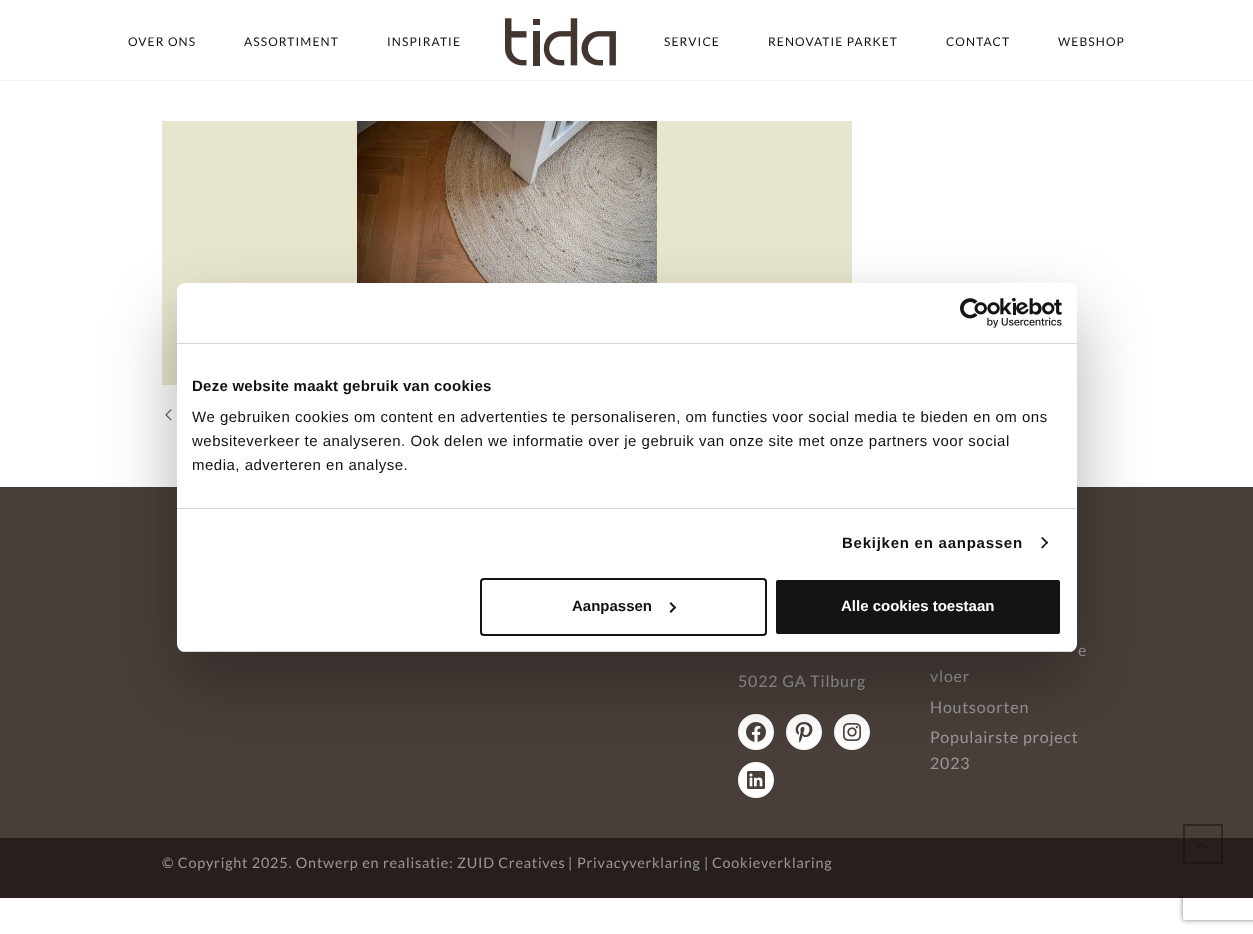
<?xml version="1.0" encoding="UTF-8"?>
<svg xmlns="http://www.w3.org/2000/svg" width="1253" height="934">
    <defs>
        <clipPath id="clip1"><path d="M 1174 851 H 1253 V 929 H 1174 Z M 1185 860 H 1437 C 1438 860 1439 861 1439 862 V 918 C 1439 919 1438 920 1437 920 H 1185 C 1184 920 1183 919 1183 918 V 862 C 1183 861 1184 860 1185 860 Z" clip-rule="evenodd"/></clipPath>
        <filter id="blur1" x="-50%" y="-200%" width="200%" height="500%"><feGaussianBlur stdDeviation="2.5"/></filter>
        <filter id="blur2" x="-50%" y="-200%" width="200%" height="500%"><feGaussianBlur stdDeviation="34"/></filter>
        <clipPath id="clip2"><rect x="177" y="283" width="900" height="369" rx="8"/></clipPath>
    </defs>
    <rect width="100%" height="100%" fill="#FFFFFF"/>
    <rect x="0" y="80" width="1253" height="1" fill="#EEEEEE"/>
    <text x="128" y="46" font-family="Lato" font-size="12" letter-spacing="1.1" fill="#111111">OVER ONS</text>
    <text x="244" y="46" font-family="Lato" font-size="12" letter-spacing="1.1" fill="#111111">ASSORTIMENT</text>
    <text x="387" y="46" font-family="Lato" font-size="12" letter-spacing="1.1" fill="#111111">INSPIRATIE</text>
    <image x="505" y="18" width="111" height="48" href="img_01.png"/>
    <text x="664" y="46" font-family="Lato" font-size="12" letter-spacing="1.1" fill="#111111">SERVICE</text>
    <text x="768" y="46" font-family="Lato" font-size="12" letter-spacing="1.1" fill="#111111">RENOVATIE PARKET</text>
    <text x="946" y="46" font-family="Lato" font-size="12" letter-spacing="1.1" fill="#111111">CONTACT</text>
    <text x="1058" y="46" font-family="Lato" font-size="12" letter-spacing="1.1" fill="#111111">WEBSHOP</text>
    <rect x="162" y="121" width="690" height="264" fill="#E8E5CE"/>
    <image x="357" y="121" width="300" height="162" href="img_02.png"/>
    <image x="165" y="409" width="7" height="12" href="img_03.png"/>
    <rect x="0" y="487" width="1253" height="351" fill="#493F3A"/>
    <text x="738" y="687" font-family="Lato" font-size="16" letter-spacing="0.8" fill="#999999">5022 GA Tilburg</text>
    <circle cx="756" cy="732" r="18" fill="#FFFFFF"/>
    <image x="746" y="722" width="20" height="20" href="img_04.png"/>
    <circle cx="804" cy="732" r="18" fill="#FFFFFF"/>
    <image x="795" y="722" width="18" height="21" href="img_05.png"/>
    <circle cx="852" cy="732" r="18" fill="#FFFFFF"/>
    <image x="843" y="723" width="18" height="18" href="img_06.png"/>
    <circle cx="756" cy="780" r="18" fill="#FFFFFF"/>
    <image x="747" y="771" width="18" height="18" href="img_07.png"/>
    <text x="1078" y="656" font-family="Lato" font-size="16" letter-spacing="0.8" fill="#999999">e</text>
    <text font-family="Lato" font-size="16" letter-spacing="0.8" fill="#999999">
        <tspan x="930" y="682">vloer</tspan>
        <tspan x="930" y="713">Houtsoorten</tspan>
        <tspan x="930" y="743">Populairste project</tspan>
        <tspan x="930" y="769">2023</tspan>
    </text>
    <g clip-path="url(#clip1)">
        <rect x="1183" y="860" width="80" height="60" rx="2" fill="#808080" filter="url(#blur1)"/>
    </g>
    <rect x="0" y="838" width="1253" height="60" fill="#281F1D"/>
    <text x="162" y="868" font-family="Lato" font-size="14.4" letter-spacing="0.8" fill="#999999">© Copyright 2025. Ontwerp en realisatie:</text>
    <text x="457" y="868" font-family="Lato" font-size="14.4" letter-spacing="0.75" fill="#999999">ZUID Creatives</text>
    <text x="568" y="868" font-family="Lato" font-size="14.4" letter-spacing="0.8" fill="#999999">|</text>
    <text x="577" y="868" font-family="Lato" font-size="14.4" letter-spacing="0.75" fill="#999999">Privacyverklaring</text>
    <text x="704" y="868" font-family="Lato" font-size="14.4" letter-spacing="0.8" fill="#999999">|</text>
    <text x="712" y="868" font-family="Lato" font-size="14.4" letter-spacing="0.75" fill="#999999">Cookieverklaring</text>
    <rect x="177" y="315" width="900" height="369" rx="8" fill="#000000" fill-opacity="0.3" filter="url(#blur2)"/>
    <rect x="177" y="283" width="900" height="369" rx="8" fill="#FFFFFF"/>
    <rect x="177" y="343" width="900" height="1" fill="#D6D6D6"/>
    <image x="960" y="298" width="102" height="30" href="img_08.png"/>
    <rect x="177" y="508" width="900" height="1" fill="#D6D6D6"/>
    <text x="192" y="391" font-family="Liberation Sans" font-size="15" font-weight="700" letter-spacing="0.25" fill="#111111">Deze website maakt gebruik van cookies</text>
    <text font-family="Liberation Sans" font-size="15" letter-spacing="0.5" fill="#111111">
        <tspan x="192" y="422">We gebruiken cookies om content en advertenties te personaliseren, om functies voor social media te bieden en om ons</tspan>
        <tspan x="192" y="446">websiteverkeer te analyseren. Ook delen we informatie over je gebruik van onze site met onze partners voor social</tspan>
        <tspan x="192" y="470">media, adverteren en analyse.</tspan>
    </text>
    <text x="842" y="548" font-family="Liberation Sans" font-size="15" font-weight="700" letter-spacing="0.75" fill="#111111">Bekijken en aanpassen</text>
    <path d="M 1042.5 537 L 1048 542.5 L 1047 544 L 1041 538 Z" fill="#141414"/>
    <path d="M 1047 541.5 L 1048 542.5 L 1042.5 548.5 L 1041 547.5 Z" fill="#141414"/>
    <g clip-path="url(#clip2)">
        <rect x="177" y="651" width="900" height="1" fill="#D6D6D6"/>
    </g>
    <rect x="481" y="579" width="285" height="56" rx="3" fill="none" stroke="#141414" stroke-width="2"/>
    <text x="572" y="611" font-family="Liberation Sans" font-size="15" font-weight="700" fill="#111111">Aanpassen</text>
    <path d="M 671 602 L 676 607.5 L 675 609 L 669.5 603.5 Z" fill="#141414"/>
    <path d="M 675 606 L 676 607.5 L 671 613 L 669.5 611.5 Z" fill="#141414"/>
    <rect x="775" y="579" width="286" height="56" rx="3" fill="#141414" stroke="#FFFFFF" stroke-width="2"/>
    <text x="841" y="611" font-family="Liberation Sans" font-size="15" font-weight="700" fill="#FFFFFF">Alle cookies toestaan</text>
    <rect x="1184" y="825" width="38" height="38" fill="none" stroke="#111111" stroke-opacity="0.5" stroke-width="2"/>
    <image x="1197" y="843" width="11" height="6" href="img_09.png"/>
</svg>
